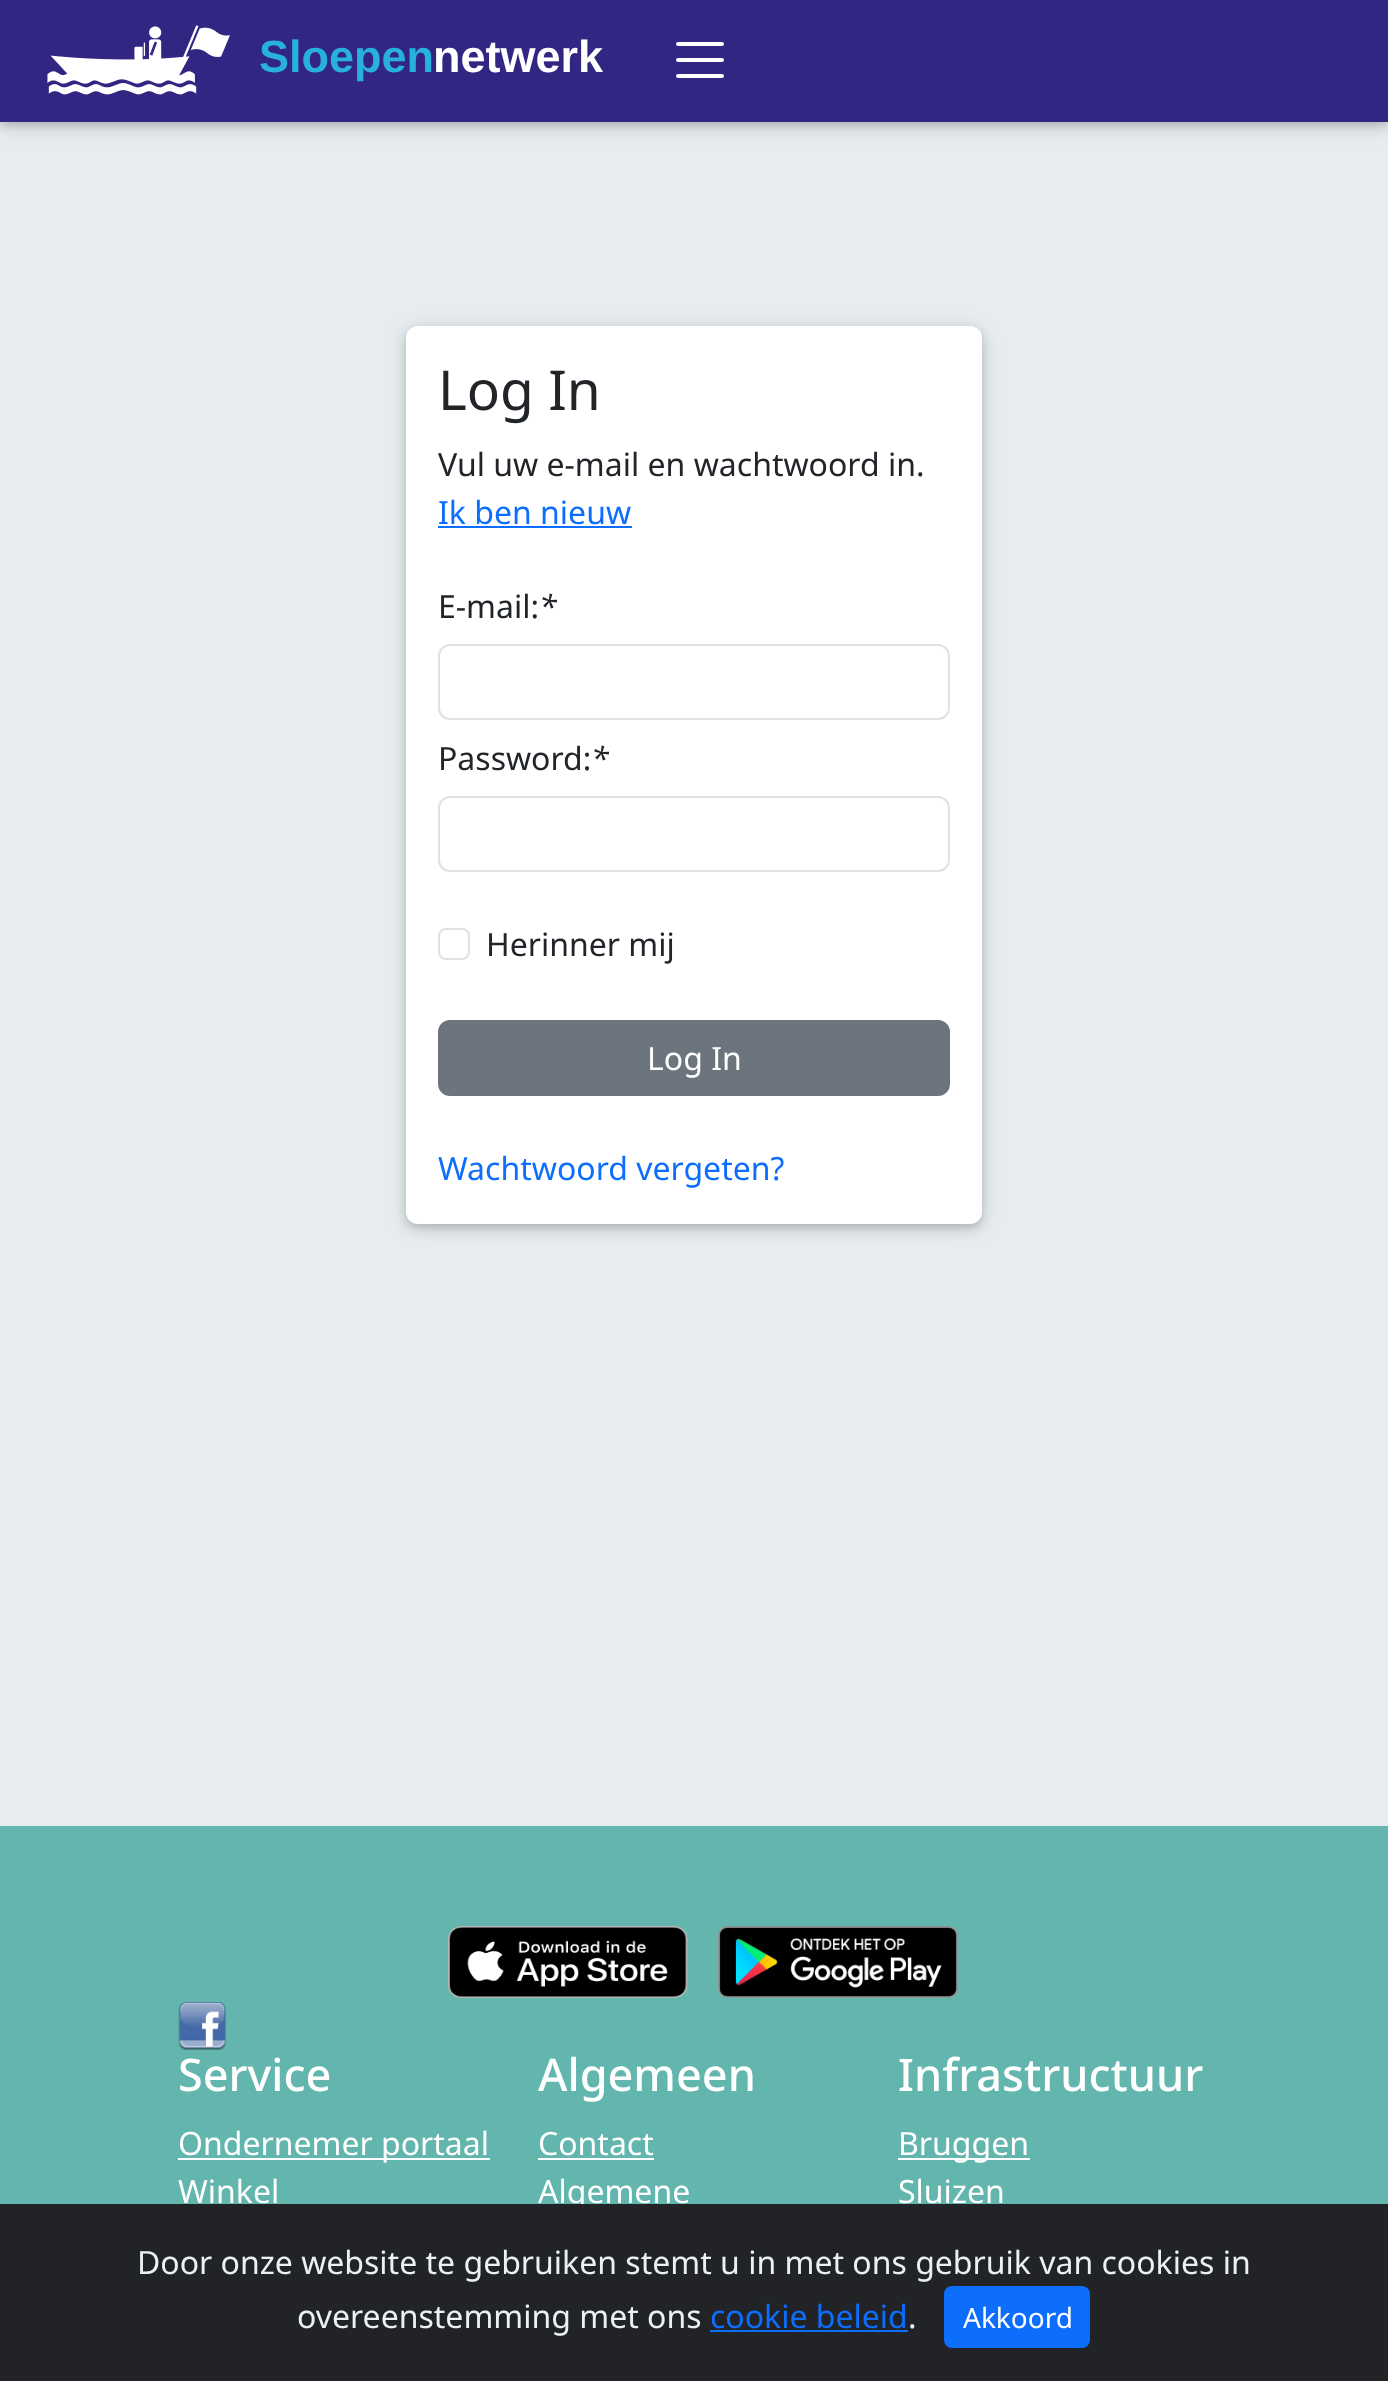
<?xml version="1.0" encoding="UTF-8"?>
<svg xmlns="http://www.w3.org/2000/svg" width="1388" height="2381">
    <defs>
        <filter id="blur1" x="-50%" y="-200%" width="200%" height="500%"><feGaussianBlur stdDeviation="10"/></filter>
        <filter id="blur2" x="-50%" y="-200%" width="200%" height="500%"><feGaussianBlur stdDeviation="5"/></filter>
    </defs>
    <rect width="100%" height="100%" fill="#E6ECEF"/>
    <rect x="0" y="4" width="1388" height="122" fill="#000000" fill-opacity="0.12" filter="url(#blur1)"/>
    <rect x="0" y="4" width="1388" height="122" fill="#000000" fill-opacity="0.16" filter="url(#blur2)"/>
    <rect x="0" y="0" width="1388" height="122" fill="#312783"/>
    <image x="47" y="25" width="183" height="70" href="img_01.png"/>
    <text x="259" y="72" font-family="Liberation Sans" font-size="45" font-weight="700" fill="#28B1DD">Sloepen</text>
    <text x="433" y="72" font-family="Liberation Sans" font-size="45" font-weight="700" fill="#FFFFFF">netwerk</text>
    <path d="M 678 44 H 722 M 678 60 H 722 M 678 76 H 722" fill="none" stroke="#FFFFFF" stroke-width="4" stroke-linecap="round"/>
    <rect x="406" y="330" width="576" height="898" rx="12" fill="#000000" fill-opacity="0.12" filter="url(#blur1)"/>
    <rect x="406" y="330" width="576" height="898" rx="12" fill="#000000" fill-opacity="0.16" filter="url(#blur2)"/>
    <rect x="406" y="326" width="576" height="898" rx="12" fill="#FFFFFF"/>
    <text x="438" y="410" font-family="Noto Sans" font-size="55" fill="#212529">Log In</text>
    <text x="438" y="476" font-family="Noto Sans" font-size="32" fill="#212529">Vul uw e-mail en wachtwoord in.</text>
    <text x="438" y="524" font-family="Noto Sans" font-size="32" fill="#0D6EFD">Ik ben nieuw</text>
    <rect x="438" y="526" width="194" height="2" fill="#0D6EFD"/>
    <text x="438" y="618" font-family="Noto Sans" font-size="32" fill="#212529">E-mail:</text>
    <text x="539" y="618" font-family="Noto Sans" font-size="32" font-style="italic" fill="#212529">*</text>
    <rect x="439" y="645" width="510" height="74" rx="11" fill="none" stroke="#DEE2E6" stroke-width="2"/>
    <text x="438" y="770" font-family="Noto Sans" font-size="32" fill="#212529">Password:</text>
    <text x="591" y="770" font-family="Noto Sans" font-size="32" font-style="italic" fill="#212529">*</text>
    <rect x="439" y="797" width="510" height="74" rx="11" fill="none" stroke="#DEE2E6" stroke-width="2"/>
    <rect x="439" y="929" width="30" height="30" rx="7" fill="none" stroke="#DEE2E6" stroke-width="2"/>
    <text x="486" y="956" font-family="Noto Sans" font-size="32" fill="#212529">Herinner mij</text>
    <rect x="439" y="1021" width="510" height="74" rx="11" fill="#6C757D" stroke="#6C757D" stroke-width="2"/>
    <text x="647" y="1070" font-family="Noto Sans" font-size="32" fill="#FFFFFF">Log In</text>
    <text x="438" y="1180" font-family="Noto Sans" font-size="32" fill="#0D6EFD">Wachtwoord vergeten?</text>
    <rect x="0" y="1826" width="1388" height="378" fill="#62B6AD"/>
    <image x="448" y="1926" width="240" height="72" href="img_02.png"/>
    <image x="718" y="1926" width="240" height="72" href="img_03.png"/>
    <image x="178" y="2002" width="48" height="48" href="img_04.png"/>
    <text x="178" y="2091" font-family="Noto Sans" font-size="45" font-weight="500" fill="#FFFFFF">Service</text>
    <rect x="178" y="2158" width="312" height="2" fill="#FFFFFF"/>
    <text font-family="Noto Sans" font-size="32" fill="#FFFFFF">
        <tspan x="178" y="2155">Ondernemer portaal</tspan>
        <tspan x="178" y="2203">Winkel</tspan>
    </text>
    <text x="538" y="2091" font-family="Noto Sans" font-size="45" font-weight="500" fill="#FFFFFF">Algemeen</text>
    <text x="538" y="2155" font-family="Noto Sans" font-size="32" fill="#FFFFFF">Contact</text>
    <rect x="538" y="2158" width="116" height="2" fill="#FFFFFF"/>
    <text x="538" y="2203" font-family="Noto Sans" font-size="32" fill="#FFFFFF">Algemene</text>
    <text x="898" y="2091" font-family="Noto Sans" font-size="45" font-weight="500" fill="#FFFFFF">Infrastructuur</text>
    <rect x="898" y="2158" width="132" height="2" fill="#FFFFFF"/>
    <text font-family="Noto Sans" font-size="32" fill="#FFFFFF">
        <tspan x="898" y="2155">Bruggen</tspan>
        <tspan x="898" y="2203">Sluizen</tspan>
    </text>
    <rect x="0" y="2204" width="1388" height="177" fill="#212327"/>
    <text x="137" y="2274" font-family="Noto Sans" font-size="32" fill="#ECF0F1">Door onze website te gebruiken stemt u in met ons gebruik van cookies in</text>
    <text x="297" y="2328" font-family="Noto Sans" font-size="32" fill="#ECF0F1">overeenstemming met ons</text>
    <text x="710" y="2328" font-family="Noto Sans" font-size="32" fill="#0D6EFD">cookie beleid</text>
    <rect x="710" y="2330" width="198" height="2" fill="#0D6EFD"/>
    <text x="908" y="2328" font-family="Noto Sans" font-size="32" fill="#ECF0F1">.</text>
    <rect x="945" y="2287" width="144" height="60" rx="7" fill="#0D6EFD" stroke="#0D6EFD" stroke-width="2"/>
    <text x="963" y="2328" font-family="Noto Sans" font-size="28" fill="#FFFFFF">Akkoord</text>
</svg>
